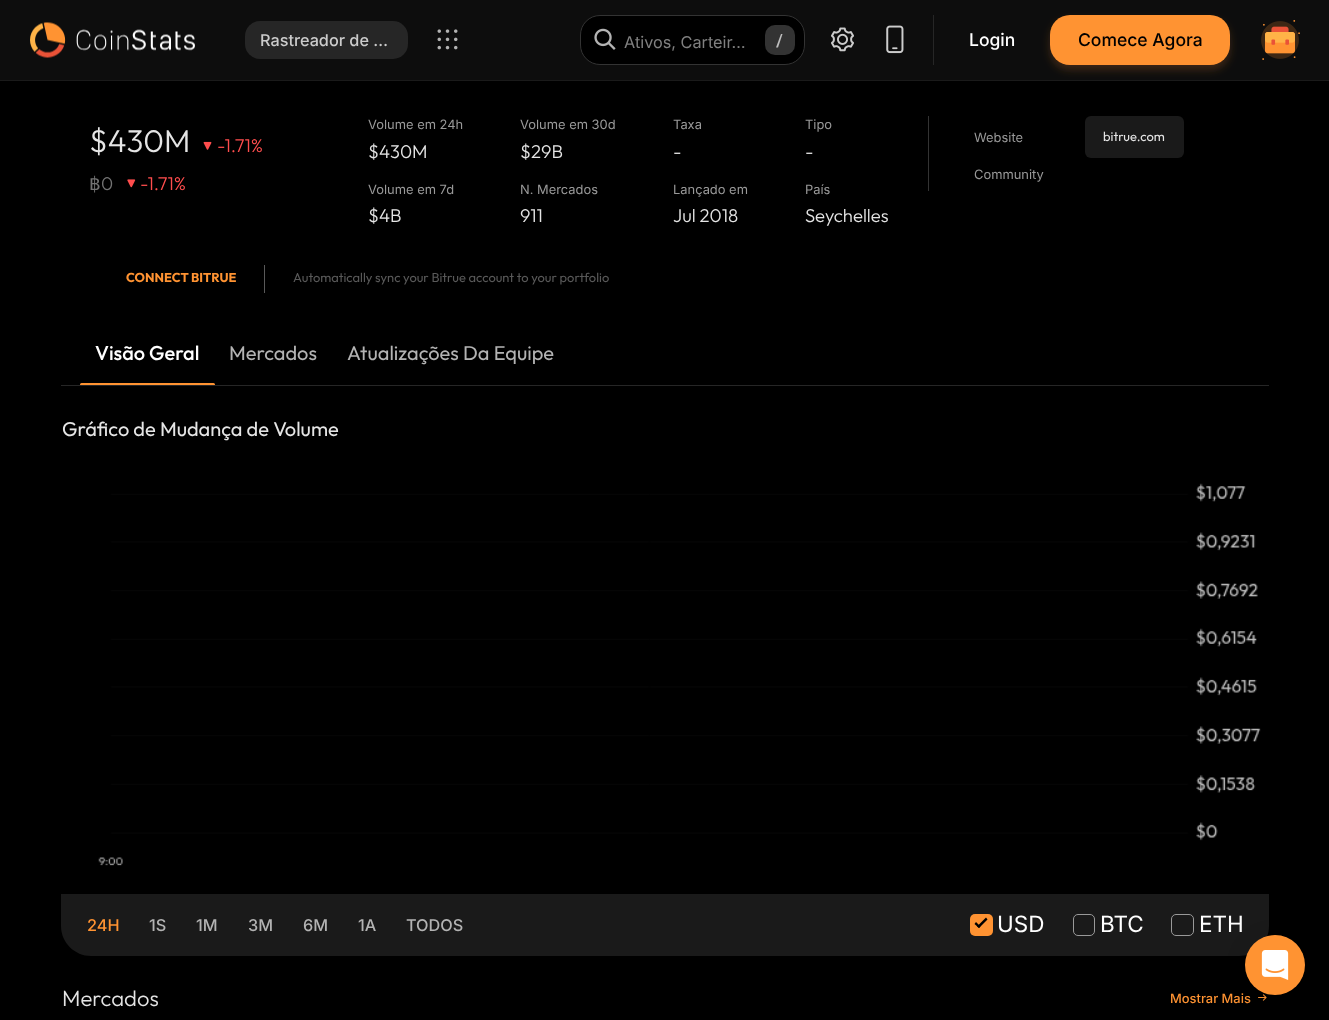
<?xml version="1.0" encoding="UTF-8"?>
<svg xmlns="http://www.w3.org/2000/svg" width="1329" height="1020">
    <defs>
        <filter id="blur1" x="-50%" y="-200%" width="200%" height="500%"><feGaussianBlur stdDeviation="4"/></filter>
        <clipPath id="clip1"><rect x="80" y="320" width="490" height="65"/></clipPath>
        <filter id="blur2" x="-50%" y="-200%" width="200%" height="500%"><feGaussianBlur stdDeviation="20"/></filter>
    </defs>
    <rect width="100%" height="100%" fill="#000000"/>
    <rect x="0" y="80" width="1329" height="1" fill="#1A1A1A"/>
    <rect x="0" y="0" width="1329" height="80" fill="#0D0D0D"/>
    <image x="30" y="22" width="165" height="36" href="img_01.png"/>
    <rect x="245" y="21" width="163" height="38" rx="15" fill="#262626"/>
    <text x="260" y="46" font-family="Inter" font-size="16.25" font-weight="500" fill="#CCCCCC">Rastreador de …</text>
    <image x="437" y="29" width="21" height="21" href="img_02.png"/>
    <rect x="580.5" y="15.5" width="224" height="49" rx="19.5" fill="#000000" stroke="#333333"/>
    <image x="594" y="28" width="22" height="22" href="img_03.png"/>
    <text x="624" y="48" font-family="Inter" font-size="16.25" fill="#808080">Ativos, Carteir…</text>
    <rect x="765" y="25" width="30" height="30" rx="10" fill="#333333"/>
    <path d="M 782.5 34 L 778 47.5 H 776 L 781 34 Z" fill="#BFBFBF"/>
    <image x="831" y="27" width="23" height="25" href="img_04.png"/>
    <image x="886" y="25" width="18" height="29" href="img_05.png"/>
    <rect x="933" y="15" width="1" height="50" fill="#262626"/>
    <text x="969" y="46" font-family="Inter" font-size="17.5" font-weight="500" fill="#FFFFFF">Login</text>
    <rect x="1050" y="20" width="180" height="50" rx="20" fill="#FF9332" fill-opacity="0.2" filter="url(#blur1)"/>
    <rect x="1050" y="15" width="180" height="50" rx="20" fill="#FF9332"/>
    <text x="1078" y="46" font-family="Inter" font-size="17.5" font-weight="500" fill="#000000">Comece Agora</text>
    <image x="1261" y="20" width="39" height="40" href="img_06.png"/>
    <text x="89" y="152" font-family="Outfit" font-size="31.5" font-weight="300" fill="#E5E5E5">$430M</text>
    <image x="203" y="141" width="9" height="9" href="img_07.png"/>
    <text x="217" y="152" font-family="Outfit" font-size="18.5" font-weight="300" fill="#FF4D4D">-1.71%</text>
    <text x="89" y="190" font-family="DejaVu Sans" font-size="18.5" fill="#737373">฿</text>
    <text x="101" y="190" font-family="Outfit" font-size="18.5" font-weight="300" fill="#737373">0</text>
    <image x="127" y="179" width="9" height="9" href="img_08.png"/>
    <text x="140" y="190" font-family="Outfit" font-size="18.5" font-weight="300" fill="#FF4D4D">-1.71%</text>
    <text x="368" y="129" font-family="Inter" font-size="12.9" fill="#999999">Volume em 24h</text>
    <text x="368" y="158" font-family="Outfit" font-size="18.5" font-weight="300" fill="#E5E5E5">$430M</text>
    <text x="520" y="129" font-family="Inter" font-size="12.9" fill="#999999">Volume em 30d</text>
    <text x="520" y="158" font-family="Outfit" font-size="18.5" font-weight="300" fill="#E5E5E5">$29B</text>
    <text x="673" y="129" font-family="Inter" font-size="12.9" fill="#999999">Taxa</text>
    <text x="673" y="158" font-family="Outfit" font-size="18.5" font-weight="300" fill="#E5E5E5">-</text>
    <text x="805" y="129" font-family="Inter" font-size="12.9" fill="#999999">Tipo</text>
    <text x="805" y="158" font-family="Outfit" font-size="18.5" font-weight="300" fill="#E5E5E5">-</text>
    <text x="368" y="194" font-family="Inter" font-size="12.9" fill="#999999">Volume em 7d</text>
    <text x="368" y="222" font-family="Outfit" font-size="18.5" font-weight="300" fill="#E5E5E5">$4B</text>
    <text x="520" y="194" font-family="Inter" font-size="12.9" fill="#999999">N. Mercados</text>
    <text x="520" y="222" font-family="Outfit" font-size="18.5" font-weight="300" fill="#E5E5E5">911</text>
    <text x="673" y="194" font-family="Inter" font-size="12.9" fill="#999999">Lançado em</text>
    <text x="673" y="222" font-family="Outfit" font-size="18.5" font-weight="300" fill="#E5E5E5">Jul 2018</text>
    <text x="805" y="194" font-family="Inter" font-size="12.9" fill="#999999">País</text>
    <text x="805" y="222" font-family="Outfit" font-size="18.5" font-weight="300" fill="#E5E5E5">Seychelles</text>
    <rect x="928" y="116" width="1" height="75" fill="#333333"/>
    <text x="974" y="142" font-family="Inter" font-size="12.9" fill="#999999">Website</text>
    <rect x="1085" y="116" width="99" height="42" rx="6" fill="#1A1A1A"/>
    <text x="1103" y="141" font-family="Outfit" font-size="12.9" fill="#E5E5E5">bitrue.com</text>
    <text x="974" y="179" font-family="Inter" font-size="12.9" fill="#999999">Community</text>
    <text x="126" y="282" font-family="Outfit" font-size="12.9" font-weight="700" fill="#FF9332">CONNECT BITRUE</text>
    <rect x="264" y="265" width="1" height="28" fill="#595959"/>
    <text x="293" y="282" font-family="Outfit" font-size="12.9" fill="#595959">Automatically sync your Bitrue account to your portfolio</text>
    <text x="95" y="360" font-family="Outfit" font-size="20" font-weight="500" fill="#FFFFFF">Visão Geral</text>
    <text x="229" y="360" font-family="Outfit" font-size="20" fill="#B3B3B3">Mercados</text>
    <text x="347" y="360" font-family="Outfit" font-size="20" fill="#B3B3B3">Atualizações Da Equipe</text>
    <rect x="61" y="385" width="1208" height="1" fill="#262626"/>
    <g clip-path="url(#clip1)">
        <rect x="80" y="383" width="135" height="3" rx="1.5" fill="#FF9332"/>
    </g>
    <text x="62" y="436" font-family="Outfit" font-size="20" fill="#E5E5E5">Gráfico de Mudança de Volume</text>
    <image x="98" y="483" width="1163" height="383" href="img_09.png"/>
    <path d="M 61 894 H 1269 V 926 C 1269 942.5 1255.5 956 1239 956 H 91 C 74.5 956 61 942.5 61 926 Z" fill="#1A1A1A"/>
    <text x="87" y="931" font-family="Inter" font-size="16.25" font-weight="500" fill="#FF9332">24H</text>
    <text x="149" y="931" font-family="Inter" font-size="16.25" font-weight="500" fill="#B3B3B3">1S</text>
    <text x="196" y="931" font-family="Inter" font-size="16.25" font-weight="500" fill="#B3B3B3">1M</text>
    <text x="248" y="931" font-family="Inter" font-size="16.25" font-weight="500" fill="#B3B3B3">3M</text>
    <text x="303" y="931" font-family="Inter" font-size="16.25" font-weight="500" fill="#B3B3B3">6M</text>
    <text x="358" y="931" font-family="Inter" font-size="16.25" font-weight="500" fill="#B3B3B3">1A</text>
    <text x="406" y="931" font-family="Inter" font-size="16.25" font-weight="500" fill="#B3B3B3">TODOS</text>
    <rect x="970" y="914" width="23" height="22" rx="5" fill="#FF9332"/>
    <text x="997" y="932" font-family="Inter" font-size="22.5" fill="#FFFFFF">USD</text>
    <path d="M 977 926.5 L 986 917.5 L 987.5 919.5 L 979 928 Z" fill="#000000"/>
    <path d="M 974.5 924 L 976 922 L 980.5 926.5 L 979 928 Z" fill="#000000"/>
    <rect x="1073.5" y="914.5" width="21" height="21" rx="4.5" fill="none" stroke="#999999"/>
    <text x="1100" y="932" font-family="Inter" font-size="22.5" fill="#FFFFFF">BTC</text>
    <rect x="1171.5" y="914.5" width="22" height="21" rx="4.5" fill="none" stroke="#999999"/>
    <text x="1199" y="932" font-family="Inter" font-size="22.5" fill="#FFFFFF">ETH</text>
    <text x="62" y="1006" font-family="Outfit" font-size="22" font-weight="300" fill="#E5E5E5">Mercados</text>
    <text x="1170" y="1003" font-family="Inter" font-size="12.9" font-weight="500" fill="#FF9332">Mostrar Mais</text>
    <image x="1258" y="994" width="9" height="7" href="img_10.png"/>
    <rect x="1245" y="938" width="60" height="60" rx="30" fill="#000000" fill-opacity="0.16" filter="url(#blur2)"/>
    <circle cx="1275" cy="965" r="30" fill="#FF9332"/>
    <image x="1261" y="950" width="28" height="30" href="img_11.png"/>
</svg>
